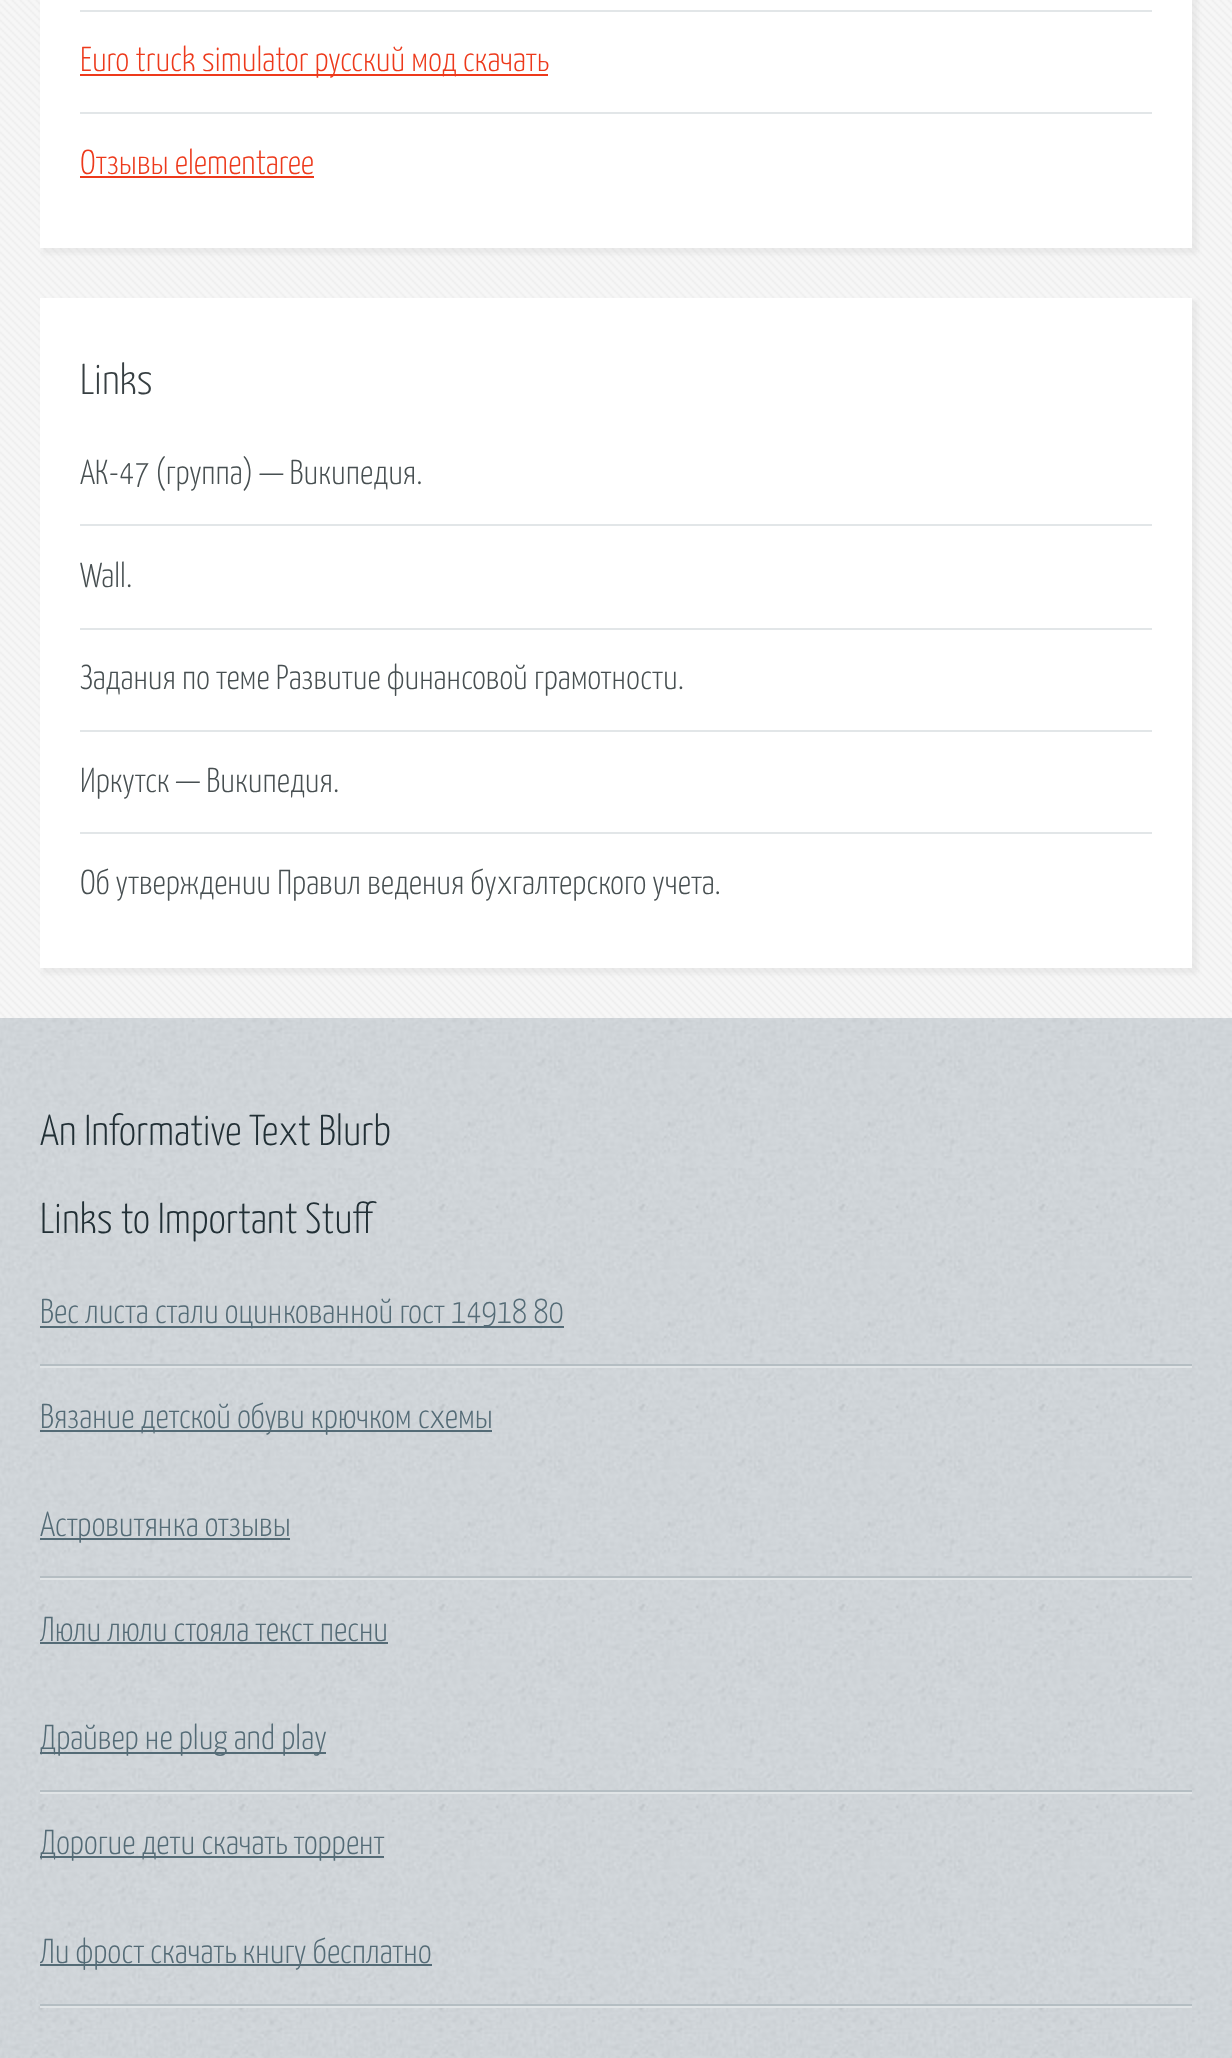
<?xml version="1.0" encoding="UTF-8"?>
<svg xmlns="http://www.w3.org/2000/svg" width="1232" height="2058">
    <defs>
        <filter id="blur1" x="-50%" y="-200%" width="200%" height="500%"><feGaussianBlur stdDeviation="2"/></filter>
    </defs>
    <rect width="100%" height="100%" fill="#FFFFFF"/>
    <image x="0" y="1018" width="1232" height="1040" href="img_01.png"/>
    <rect x="0" y="0" width="1232" height="1018" fill="#F7F7F7"/>
    <image x="0" y="0" width="1232" height="1018" href="img_02.png"/>
    <rect x="42" y="-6" width="1156" height="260" fill="#808080" fill-opacity="0.1" filter="url(#blur1)"/>
    <rect x="40" y="0" width="1152" height="248" fill="#FFFFFF"/>
    <rect x="80" y="10" width="1072" height="2" fill="#E2E6E8"/>
    <rect x="80" y="112" width="1072" height="2" fill="#E2E6E8"/>
    <rect x="80" y="74" width="468" height="2" fill="#ED391B"/>
    <text x="80" y="71" font-family="Yanone Kaffeesatz" font-size="34.7" font-weight="300" fill="#ED391B">Euro truck simulator русский мод скачать</text>
    <text x="80" y="174" font-family="Yanone Kaffeesatz" font-size="34.7" font-weight="300" fill="#ED391B">Отзывы elementaree</text>
    <rect x="80" y="176" width="234" height="2" fill="#ED391B"/>
    <rect x="42" y="300" width="1156" height="674" fill="#808080" fill-opacity="0.1" filter="url(#blur1)"/>
    <rect x="40" y="298" width="1152" height="670" fill="#FFFFFF"/>
    <text x="80" y="394" font-family="Yanone Kaffeesatz" font-size="43.25" font-weight="300" fill="#373F42">Links</text>
    <rect x="80" y="524" width="1072" height="2" fill="#E2E6E8"/>
    <text x="80" y="484" font-family="Yanone Kaffeesatz" font-size="34.7" font-weight="300" fill="#474F51">АК-47 (группа) — Википедия.</text>
    <rect x="80" y="628" width="1072" height="2" fill="#E2E6E8"/>
    <text x="80" y="587" font-family="Yanone Kaffeesatz" font-size="34.7" font-weight="300" fill="#474F51">Wall.</text>
    <rect x="80" y="730" width="1072" height="2" fill="#E2E6E8"/>
    <text x="80" y="689" font-family="Yanone Kaffeesatz" font-size="34.7" font-weight="300" fill="#474F51">Задания по теме Развитие финансовой грамотности.</text>
    <rect x="80" y="832" width="1072" height="2" fill="#E2E6E8"/>
    <text x="80" y="792" font-family="Yanone Kaffeesatz" font-size="34.7" font-weight="300" fill="#474F51">Иркутск — Википедия.</text>
    <text x="80" y="894" font-family="Yanone Kaffeesatz" font-size="34.7" font-weight="300" fill="#474F51">Об утверждении Правил ведения бухгалтерского учета.</text>
    <text x="40" y="1145" font-family="Yanone Kaffeesatz" font-size="43.25" font-weight="300" fill="#212F35">An Informative Text Blurb</text>
    <text x="40" y="1233" font-family="Yanone Kaffeesatz" font-size="43.25" font-weight="300" fill="#212F35">Links to Important Stuff</text>
    <rect x="40" y="1364" width="1152" height="2" fill="#B5BEC3"/>
    <rect x="40" y="1326" width="524" height="2" fill="#546B76"/>
    <text x="40" y="1323" font-family="Yanone Kaffeesatz" font-size="34.7" font-weight="300" fill="#546B76">Вес листа стали оцинкованной гост 14918 80</text>
    <rect x="40" y="1366" width="1152" height="2" fill="#E0E4E6"/>
    <rect x="40" y="1430" width="452" height="2" fill="#546B76"/>
    <text x="40" y="1428" font-family="Yanone Kaffeesatz" font-size="34.7" font-weight="300" fill="#546B76">Вязание детской обуви крючком схемы</text>
    <rect x="40" y="1576" width="1152" height="2" fill="#B5BEC3"/>
    <rect x="40" y="1538" width="250" height="2" fill="#546B76"/>
    <text x="40" y="1536" font-family="Yanone Kaffeesatz" font-size="34.7" font-weight="300" fill="#546B76">Астровитянка отзывы</text>
    <rect x="40" y="1578" width="1152" height="2" fill="#E0E4E6"/>
    <text x="40" y="1641" font-family="Yanone Kaffeesatz" font-size="34.7" font-weight="300" fill="#546B76">Люли люли стояла текст песни</text>
    <rect x="40" y="1642" width="348" height="2" fill="#546B76"/>
    <rect x="40" y="1790" width="1152" height="2" fill="#B5BEC3"/>
    <rect x="40" y="1752" width="286" height="2" fill="#546B76"/>
    <text x="40" y="1749" font-family="Yanone Kaffeesatz" font-size="34.7" font-weight="300" fill="#546B76">Драйвер не plug and play</text>
    <rect x="40" y="1792" width="1152" height="2" fill="#E0E4E6"/>
    <rect x="40" y="1856" width="344" height="2" fill="#546B76"/>
    <text x="40" y="1854" font-family="Yanone Kaffeesatz" font-size="34.7" font-weight="300" fill="#546B76">Дорогие дети скачать торрент</text>
    <rect x="40" y="2004" width="1152" height="2" fill="#B5BEC3"/>
    <rect x="40" y="1964" width="392" height="2" fill="#546B76"/>
    <text x="40" y="1963" font-family="Yanone Kaffeesatz" font-size="34.7" font-weight="300" fill="#546B76">Ли фрост скачать книгу бесплатно</text>
    <rect x="40" y="2006" width="1152" height="2" fill="#E0E4E6"/>
</svg>
